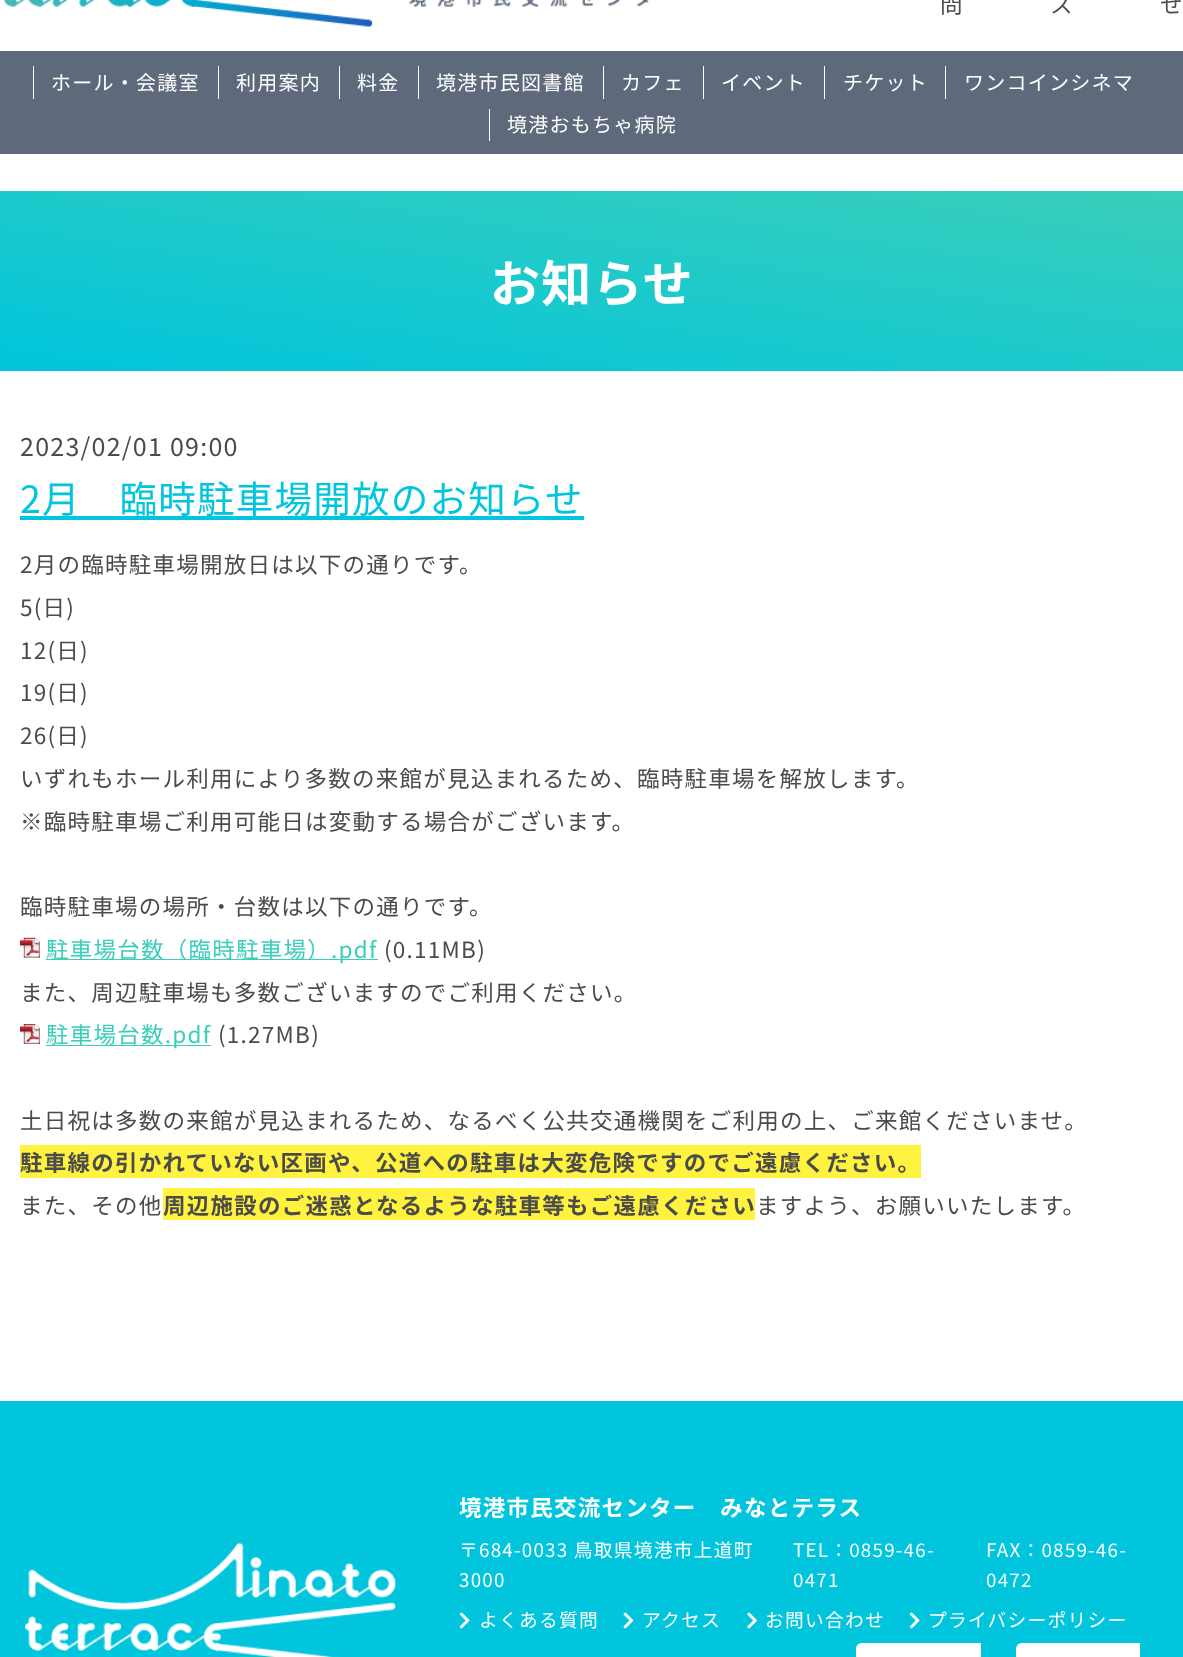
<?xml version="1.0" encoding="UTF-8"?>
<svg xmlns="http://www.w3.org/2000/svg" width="1183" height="1657">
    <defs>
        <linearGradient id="g1" gradientUnits="userSpaceOnUse" x1="565" y1="457" x2="619" y2="105"><stop offset="0" stop-color="#00C5DC"/><stop offset="1" stop-color="#3ACEBA"/></linearGradient>
    </defs>
    <rect width="100%" height="100%" fill="#FFFFFF"/>
    <image x="3" y="0" width="646" height="27" href="img_01.png"/>
    <text x="940" y="13" font-family="Noto Sans JP" font-size="22.5" letter-spacing="1.25" fill="#4B4B4B">問</text>
    <text x="1050" y="13" font-family="Noto Sans JP" font-size="22.5" letter-spacing="1.25" fill="#4B4B4B">ス</text>
    <text x="1160" y="13" font-family="Noto Sans JP" font-size="22.5" letter-spacing="1.25" fill="#4B4B4B">せ</text>
    <rect x="0" y="51" width="1183" height="103" fill="#5E6A7C"/>
    <rect x="33" y="66" width="1" height="33" fill="#FFFFFF"/>
    <text x="51" y="90" font-family="Noto Sans JP" font-size="20" letter-spacing="1.25" fill="#FFFFFF">ホール・会議室</text>
    <rect x="218" y="66" width="1" height="33" fill="#FFFFFF"/>
    <text x="236" y="90" font-family="Noto Sans JP" font-size="20" letter-spacing="1.25" fill="#FFFFFF">利用案内</text>
    <rect x="339" y="66" width="1" height="33" fill="#FFFFFF"/>
    <text x="357" y="90" font-family="Noto Sans JP" font-size="20" letter-spacing="1.25" fill="#FFFFFF">料金</text>
    <rect x="418" y="66" width="1" height="33" fill="#FFFFFF"/>
    <text x="436" y="90" font-family="Noto Sans JP" font-size="20" letter-spacing="1.25" fill="#FFFFFF">境港市民図書館</text>
    <rect x="603" y="66" width="1" height="33" fill="#FFFFFF"/>
    <text x="621" y="90" font-family="Noto Sans JP" font-size="20" letter-spacing="1.25" fill="#FFFFFF">カフェ</text>
    <rect x="703" y="66" width="1" height="33" fill="#FFFFFF"/>
    <text x="721" y="90" font-family="Noto Sans JP" font-size="20" letter-spacing="1.25" fill="#FFFFFF">イベント</text>
    <rect x="824" y="66" width="1" height="33" fill="#FFFFFF"/>
    <text x="843" y="90" font-family="Noto Sans JP" font-size="20" letter-spacing="1.25" fill="#FFFFFF">チケット</text>
    <rect x="945" y="66" width="1" height="33" fill="#FFFFFF"/>
    <text x="964" y="90" font-family="Noto Sans JP" font-size="20" letter-spacing="1.25" fill="#FFFFFF">ワンコインシネマ</text>
    <rect x="489" y="109" width="1" height="32" fill="#FFFFFF"/>
    <text x="507" y="132" font-family="Noto Sans JP" font-size="20" letter-spacing="1.25" fill="#FFFFFF">境港おもちゃ病院</text>
    <rect x="0" y="191" width="1183" height="180" fill="url(#g1)"/>
    <text x="490" y="302" font-family="Noto Sans JP" font-size="50" font-weight="700" letter-spacing="1.25" fill="#FFFFFF">お知らせ</text>
    <text x="20" y="456" font-family="Noto Sans JP" font-size="25" letter-spacing="1.25" fill="#4B4B4B">2023/02/01 09:00</text>
    <rect x="20" y="516" width="564" height="4" fill="#00C5DC"/>
    <text x="20" y="513" font-family="Noto Sans JP" font-size="37.5" letter-spacing="1.25" fill="#00C5DC">2月　臨時駐車場開放のお知らせ</text>
    <text font-family="Noto Sans JP" font-size="22.5" letter-spacing="1.25" fill="#4B4B4B">
        <tspan x="20" y="573">2月の臨時駐車場開放日は以下の通りです。</tspan>
        <tspan x="20" y="616">5(日)</tspan>
        <tspan x="20" y="659">12(日)</tspan>
        <tspan x="20" y="701">19(日)</tspan>
        <tspan x="20" y="744">26(日)</tspan>
        <tspan x="20" y="787">いずれもホール利用により多数の来館が見込まれるため、臨時駐車場を解放します。</tspan>
        <tspan x="20" y="830">※臨時駐車場ご利用可能日は変動する場合がございます。</tspan>
    </text>
    <text x="20" y="915" font-family="Noto Sans JP" font-size="22.5" letter-spacing="1.25" fill="#4B4B4B">臨時駐車場の場所・台数は以下の通りです。</text>
    <image x="20" y="937" width="20" height="21" href="img_02.png"/>
    <rect x="46" y="959" width="332" height="1" fill="#3ACEBA"/>
    <text x="46" y="958" font-family="Noto Sans JP" font-size="22.5" letter-spacing="1.25" fill="#3ACEBA">駐車場台数（臨時駐車場）.pdf</text>
    <text x="384" y="958" font-family="Noto Sans JP" font-size="22.5" letter-spacing="1.25" fill="#4B4B4B">(0.11MB)</text>
    <text x="20" y="1001" font-family="Noto Sans JP" font-size="22.5" letter-spacing="1.25" fill="#4B4B4B">また、周辺駐車場も多数ございますのでご利用ください。</text>
    <image x="20" y="1024" width="20" height="20" href="img_03.png"/>
    <rect x="46" y="1045" width="165" height="1" fill="#3ACEBA"/>
    <text x="46" y="1043" font-family="Noto Sans JP" font-size="22.5" letter-spacing="1.25" fill="#3ACEBA">駐車場台数.pdf</text>
    <text x="218" y="1043" font-family="Noto Sans JP" font-size="22.5" letter-spacing="1.25" fill="#4B4B4B">(1.27MB)</text>
    <text x="20" y="1129" font-family="Noto Sans JP" font-size="22.5" letter-spacing="1.25" fill="#4B4B4B">土日祝は多数の来館が見込まれるため、なるべく公共交通機関をご利用の上、ご来館くださいませ。</text>
    <rect x="20" y="1145" width="901" height="33" fill="#FFF33F"/>
    <text x="20" y="1171" font-family="Noto Sans JP" font-size="22.5" font-weight="700" letter-spacing="1.25" fill="#4B4B4B">駐車線の引かれていない区画や、公道への駐車は大変危険ですのでご遠慮ください。</text>
    <text x="20" y="1214" font-family="Noto Sans JP" font-size="22.5" letter-spacing="1.25" fill="#4B4B4B">また、その他</text>
    <rect x="163" y="1188" width="592" height="32" fill="#FFF33F"/>
    <text x="163" y="1214" font-family="Noto Sans JP" font-size="22.5" font-weight="700" letter-spacing="1.25" fill="#4B4B4B">周辺施設のご迷惑となるような駐車等もご遠慮ください</text>
    <text x="756" y="1214" font-family="Noto Sans JP" font-size="22.5" letter-spacing="1.25" fill="#4B4B4B">ますよう、お願いいたします。</text>
    <rect x="0" y="1401" width="1183" height="256" fill="#00C5DC"/>
    <image x="25" y="1542" width="372" height="115" href="img_04.png"/>
    <text x="459" y="1516" font-family="Noto Sans JP" font-size="22.5" font-weight="700" letter-spacing="1.25" fill="#FFFFFF">境港市民交流センター　みなとテラス</text>
    <text font-family="Noto Sans JP" font-size="18.75" letter-spacing="1.25" fill="#FFFFFF">
        <tspan x="459" y="1557">〒684-0033 鳥取県境港市上道町</tspan>
        <tspan x="459" y="1587">3000</tspan>
    </text>
    <text font-family="Noto Sans JP" font-size="18.75" letter-spacing="1.25" fill="#FFFFFF">
        <tspan x="793" y="1557">TEL：0859-46-</tspan>
        <tspan x="793" y="1587">0471</tspan>
    </text>
    <text font-family="Noto Sans JP" font-size="18.75" letter-spacing="1.25" fill="#FFFFFF">
        <tspan x="986" y="1557">FAX：0859-46-</tspan>
        <tspan x="986" y="1587">0472</tspan>
    </text>
    <image x="459" y="1612" width="11" height="17" href="img_05.png"/>
    <text x="479" y="1627" font-family="Noto Sans JP" font-size="18.75" letter-spacing="1.25" fill="#FFFFFF">よくある質問</text>
    <image x="623" y="1612" width="11" height="17" href="img_06.png"/>
    <text x="642" y="1627" font-family="Noto Sans JP" font-size="18.75" letter-spacing="1.25" fill="#FFFFFF">アクセス</text>
    <image x="747" y="1612" width="10" height="17" href="img_07.png"/>
    <text x="765" y="1627" font-family="Noto Sans JP" font-size="18.75" letter-spacing="1.25" fill="#FFFFFF">お問い合わせ</text>
    <image x="909" y="1612" width="11" height="17" href="img_05.png"/>
    <text x="928" y="1627" font-family="Noto Sans JP" font-size="18.75" letter-spacing="1.25" fill="#FFFFFF">プライバシーポリシー</text>
    <path d="M 862 1643 H 981 V 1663 H 862 C 858.5 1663 856 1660.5 856 1657 V 1649 C 856 1645.5 858.5 1643 862 1643 Z" fill="#FFFFFF"/>
    <path d="M 1022 1643 H 1140 V 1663 H 1022 C 1018.5 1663 1016 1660.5 1016 1657 V 1649 C 1016 1645.5 1018.5 1643 1022 1643 Z" fill="#FFFFFF"/>
</svg>
